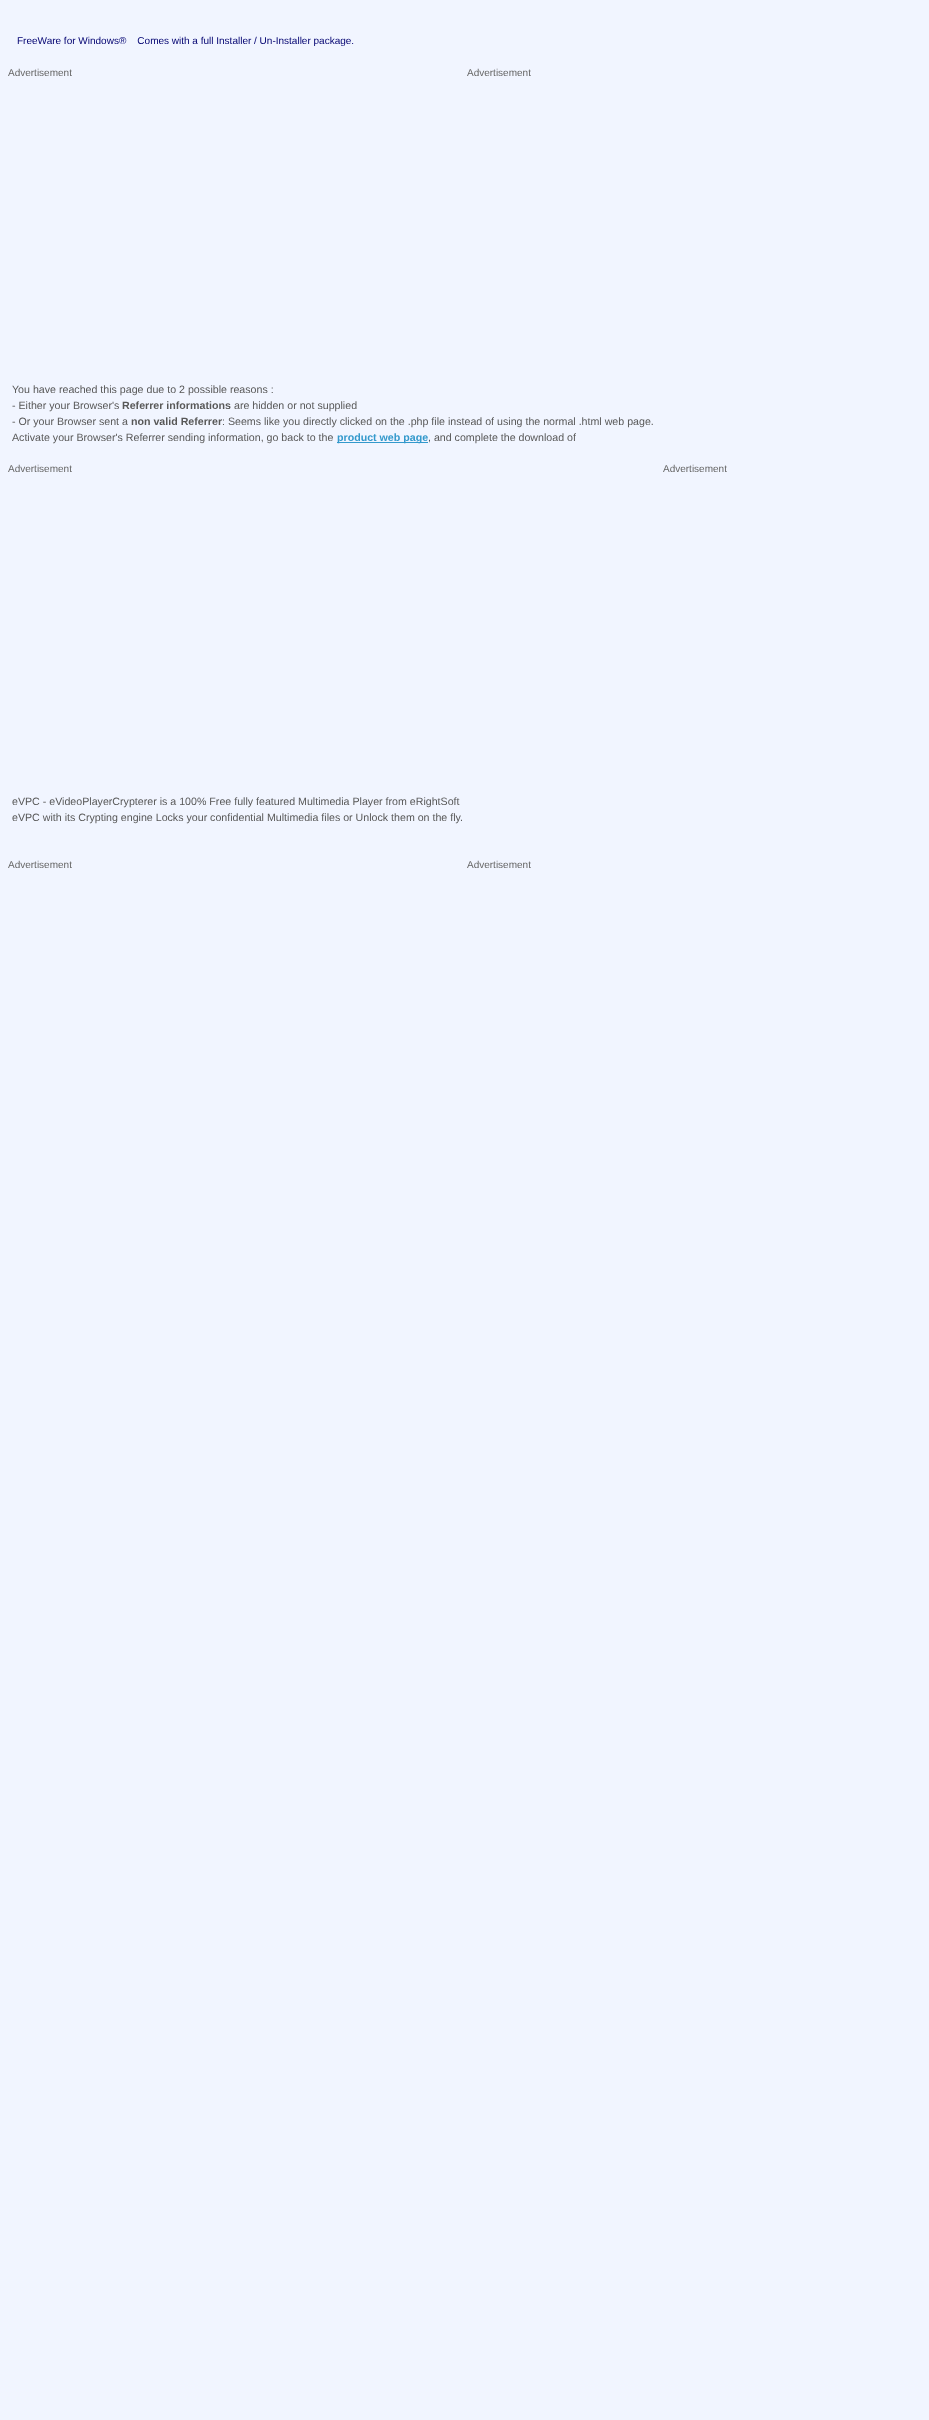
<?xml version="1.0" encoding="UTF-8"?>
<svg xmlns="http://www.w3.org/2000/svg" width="929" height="2420">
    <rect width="100%" height="100%" fill="#F1F5FF"/>
    <text x="17" y="44" font-family="Liberation Sans" font-size="10" fill="#000070" xml:space="preserve">FreeWare for Windows®    Comes with a full Installer / Un-Installer package.</text>
    <text x="8" y="76" font-family="Liberation Sans" font-size="10" fill="#666666">Advertisement</text>
    <text x="467" y="76" font-family="Liberation Sans" font-size="10" fill="#666666">Advertisement</text>
    <text font-family="Liberation Sans" font-size="10.65" fill="#585858">
        <tspan x="12" y="393">You have reached this page due to 2 possible reasons :</tspan>
        <tspan x="12" y="409">- Either your Browser's</tspan>
    </text>
    <text x="122" y="409" font-family="Liberation Sans" font-size="10.65" font-weight="700" fill="#585858">Referrer informations</text>
    <text x="234" y="409" font-family="Liberation Sans" font-size="10.65" fill="#585858">are hidden or not supplied</text>
    <text x="12" y="425" font-family="Liberation Sans" font-size="10.65" fill="#585858">- Or your Browser sent a</text>
    <text x="131" y="425" font-family="Liberation Sans" font-size="10.65" font-weight="700" fill="#585858">non valid Referrer</text>
    <text x="222" y="425" font-family="Liberation Sans" font-size="10.65" fill="#585858">: Seems like you directly clicked on the .php file instead of using the normal .html web page.</text>
    <text x="12" y="441" font-family="Liberation Sans" font-size="10.65" fill="#585858">Activate your Browser's Referrer sending information, go back to the</text>
    <rect x="337" y="442" width="91" height="1" fill="#3399CC"/>
    <text x="337" y="441" font-family="Liberation Sans" font-size="10.65" font-weight="700" fill="#3399CC">product web page</text>
    <text x="428" y="441" font-family="Liberation Sans" font-size="10.65" fill="#585858">, and complete the download of</text>
    <text x="8" y="472" font-family="Liberation Sans" font-size="10" fill="#666666">Advertisement</text>
    <text x="663" y="472" font-family="Liberation Sans" font-size="10" fill="#666666">Advertisement</text>
    <text font-family="Liberation Sans" font-size="10.65" fill="#585858">
        <tspan x="12" y="805">eVPC - eVideoPlayerCrypterer is a 100% Free fully featured Multimedia Player from eRightSoft</tspan>
        <tspan x="12" y="821">eVPC with its Crypting engine Locks your confidential Multimedia files or Unlock them on the fly.</tspan>
    </text>
    <text x="8" y="868" font-family="Liberation Sans" font-size="10" fill="#666666">Advertisement</text>
    <text x="467" y="868" font-family="Liberation Sans" font-size="10" fill="#666666">Advertisement</text>
</svg>
